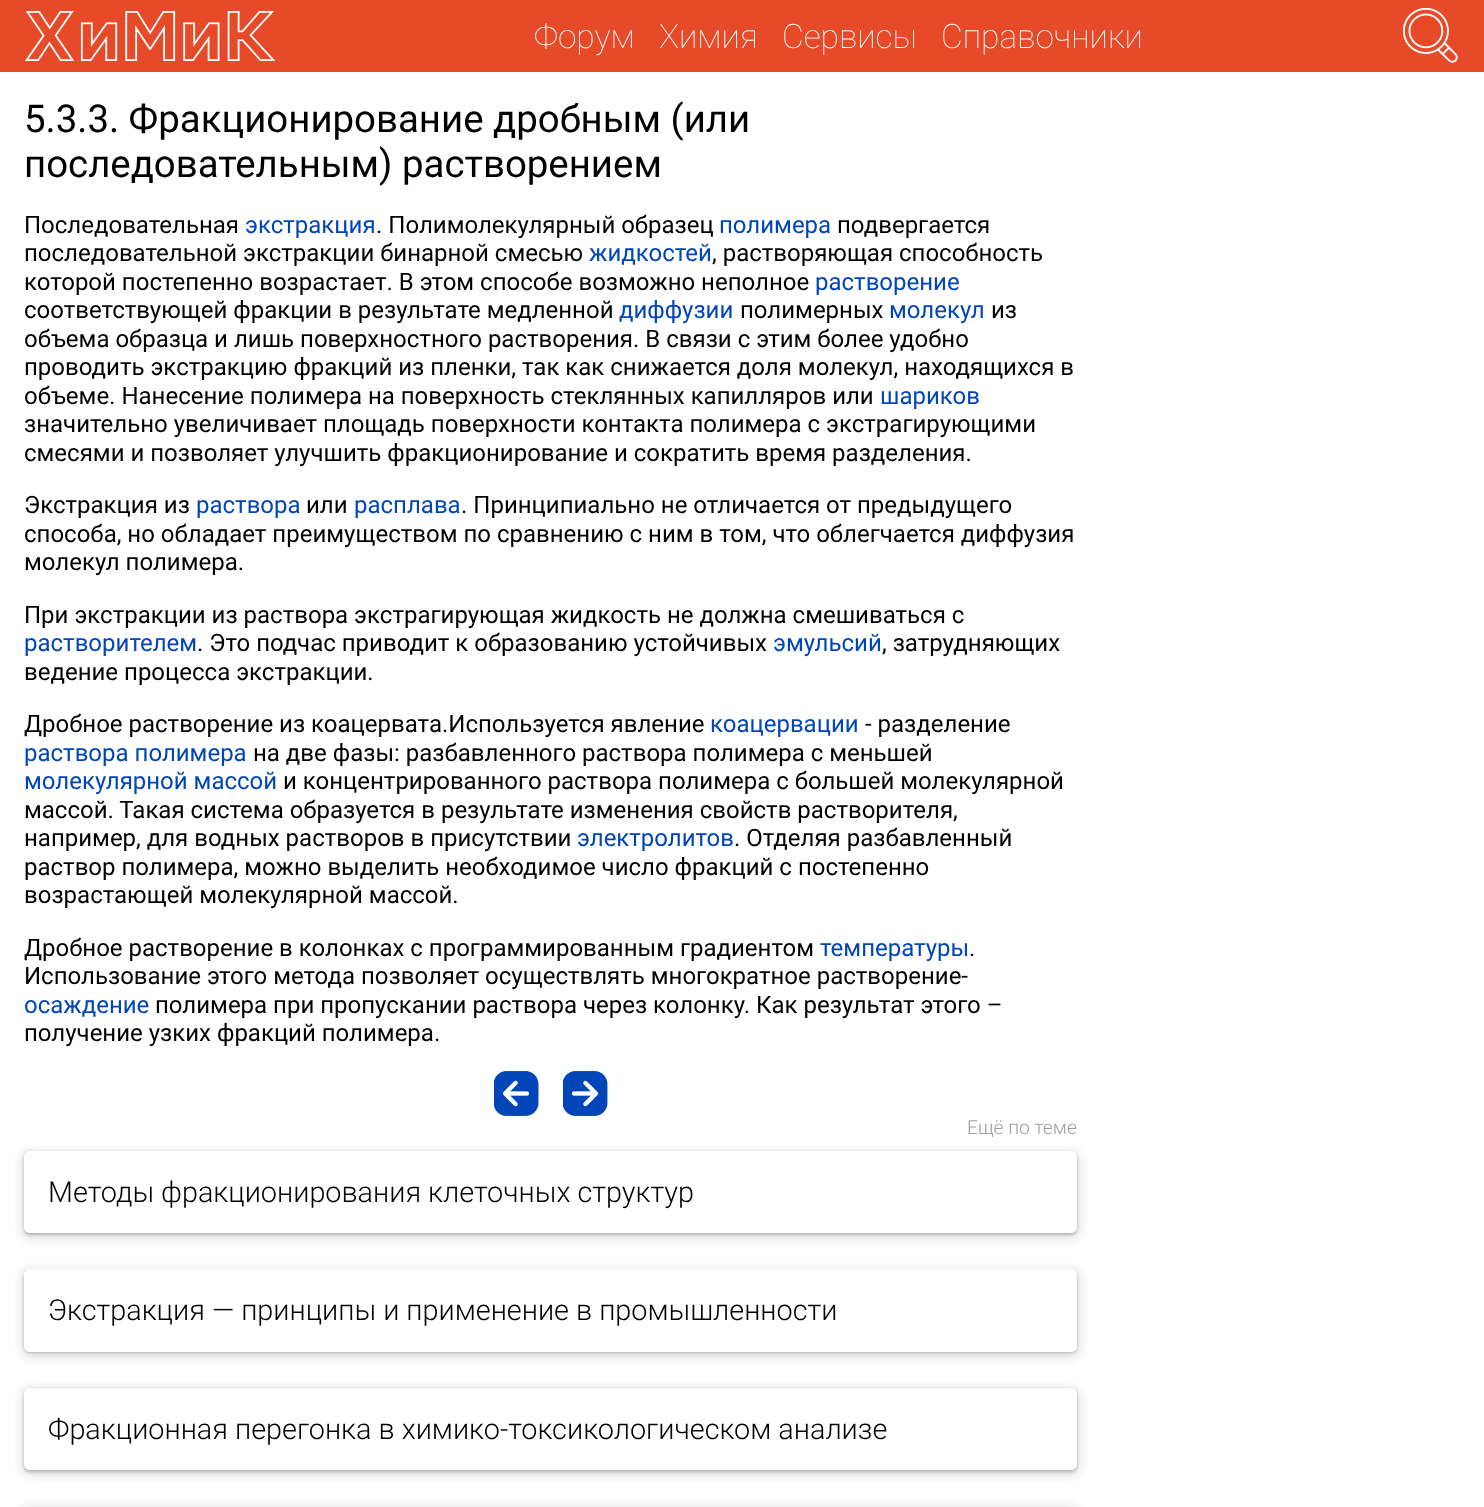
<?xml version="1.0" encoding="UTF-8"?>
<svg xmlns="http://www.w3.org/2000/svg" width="1484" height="1507">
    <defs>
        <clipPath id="clip1"><path d="M 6 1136 H 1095 V 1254 H 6 Z M 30 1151 H 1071 C 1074.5 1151 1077 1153.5 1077 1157 V 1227 C 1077 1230.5 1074.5 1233 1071 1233 H 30 C 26.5 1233 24 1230.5 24 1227 V 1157 C 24 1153.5 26.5 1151 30 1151 Z" clip-rule="evenodd"/></clipPath>
        <filter id="blur1" x="-50%" y="-200%" width="200%" height="500%"><feGaussianBlur stdDeviation="4.5"/></filter>
        <clipPath id="clip2"><path d="M 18 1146 H 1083 V 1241 H 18 Z M 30 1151 H 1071 C 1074.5 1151 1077 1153.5 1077 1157 V 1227 C 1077 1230.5 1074.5 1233 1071 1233 H 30 C 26.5 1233 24 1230.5 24 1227 V 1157 C 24 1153.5 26.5 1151 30 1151 Z" clip-rule="evenodd"/></clipPath>
        <filter id="blur2" x="-50%" y="-200%" width="200%" height="500%"><feGaussianBlur stdDeviation="1.5"/></filter>
        <clipPath id="clip3"><path d="M 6 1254 H 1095 V 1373 H 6 Z M 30 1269 H 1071 C 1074.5 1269 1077 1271.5 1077 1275 V 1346 C 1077 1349.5 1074.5 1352 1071 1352 H 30 C 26.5 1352 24 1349.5 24 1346 V 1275 C 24 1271.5 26.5 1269 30 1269 Z" clip-rule="evenodd"/></clipPath>
        <clipPath id="clip4"><path d="M 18 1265 H 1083 V 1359 H 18 Z M 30 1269 H 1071 C 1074.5 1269 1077 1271.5 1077 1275 V 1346 C 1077 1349.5 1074.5 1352 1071 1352 H 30 C 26.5 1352 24 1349.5 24 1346 V 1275 C 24 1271.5 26.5 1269 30 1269 Z" clip-rule="evenodd"/></clipPath>
        <clipPath id="clip5"><path d="M 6 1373 H 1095 V 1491 H 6 Z M 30 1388 H 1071 C 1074.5 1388 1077 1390.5 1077 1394 V 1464 C 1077 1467.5 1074.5 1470 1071 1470 H 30 C 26.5 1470 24 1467.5 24 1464 V 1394 C 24 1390.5 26.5 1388 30 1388 Z" clip-rule="evenodd"/></clipPath>
        <clipPath id="clip6"><path d="M 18 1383 H 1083 V 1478 H 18 Z M 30 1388 H 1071 C 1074.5 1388 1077 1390.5 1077 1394 V 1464 C 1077 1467.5 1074.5 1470 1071 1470 H 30 C 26.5 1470 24 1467.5 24 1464 V 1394 C 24 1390.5 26.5 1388 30 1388 Z" clip-rule="evenodd"/></clipPath>
    </defs>
    <rect width="100%" height="100%" fill="#FFFFFF"/>
    <rect x="0" y="0" width="1484" height="72" fill="#E74A29"/>
    <image x="25" y="11" width="251" height="50" href="img_01.png"/>
    <text x="534" y="48" font-family="Roboto" font-size="33.5" font-weight="100" fill="#FFFFFF">Форум</text>
    <text x="659" y="48" font-family="Roboto" font-size="33.5" font-weight="100" fill="#FFFFFF">Химия</text>
    <text x="782" y="48" font-family="Roboto" font-size="33.5" font-weight="100" fill="#FFFFFF">Сервисы</text>
    <text x="941" y="48" font-family="Roboto" font-size="33.5" font-weight="100" fill="#FFFFFF">Справочники</text>
    <image x="1402" y="7" width="56" height="56" href="img_02.png"/>
    <text font-family="Roboto" font-size="38.4" fill="#000000">
        <tspan x="24" y="132">5.3.3. Фракционирование дробным (или</tspan>
        <tspan x="24" y="177">последовательным) растворением</tspan>
    </text>
    <text x="24" y="233" font-family="Roboto" font-size="24" fill="#000000">Последовательная</text>
    <text x="245" y="233" font-family="Roboto" font-size="24" fill="#0046B9">экстракция</text>
    <text x="376" y="233" font-family="Roboto" font-size="24" fill="#000000">. Полимолекулярный образец</text>
    <text x="719" y="233" font-family="Roboto" font-size="24" fill="#0046B9">полимера</text>
    <text x="837" y="233" font-family="Roboto" font-size="24" fill="#000000">подвергается</text>
    <text x="24" y="261" font-family="Roboto" font-size="24" fill="#000000">последовательной экстракции бинарной смесью</text>
    <text x="589" y="261" font-family="Roboto" font-size="24" fill="#0046B9">жидкостей</text>
    <text x="712" y="261" font-family="Roboto" font-size="24" fill="#000000">, растворяющая способность</text>
    <text x="24" y="290" font-family="Roboto" font-size="24" fill="#000000">которой постепенно возрастает. В этом способе возможно неполное</text>
    <text x="815" y="290" font-family="Roboto" font-size="24" fill="#0046B9">растворение</text>
    <text x="24" y="318" font-family="Roboto" font-size="24" fill="#000000">соответствующей фракции в результате медленной</text>
    <text x="619" y="318" font-family="Roboto" font-size="24" fill="#0046B9">диффузии</text>
    <text x="740" y="318" font-family="Roboto" font-size="24" fill="#000000">полимерных</text>
    <text x="889" y="318" font-family="Roboto" font-size="24" fill="#0046B9">молекул</text>
    <text x="991" y="318" font-family="Roboto" font-size="24" fill="#000000">из</text>
    <text font-family="Roboto" font-size="24" fill="#000000">
        <tspan x="24" y="347">объема образца и лишь поверхностного растворения. В связи с этим более удобно</tspan>
        <tspan x="24" y="375">проводить экстракцию фракций из пленки, так как снижается доля молекул, находящихся в</tspan>
        <tspan x="24" y="404">объеме. Нанесение полимера на поверхность стеклянных капилляров или</tspan>
    </text>
    <text x="880" y="404" font-family="Roboto" font-size="24" fill="#0046B9">шариков</text>
    <text font-family="Roboto" font-size="24" fill="#000000">
        <tspan x="24" y="432">значительно увеличивает площадь поверхности контакта полимера с экстрагирующими</tspan>
        <tspan x="24" y="461">смесями и позволяет улучшить фракционирование и сократить время разделения.</tspan>
    </text>
    <text x="24" y="513" font-family="Roboto" font-size="24" fill="#000000">Экстракция из</text>
    <text x="196" y="513" font-family="Roboto" font-size="24" fill="#0046B9">раствора</text>
    <text x="306" y="513" font-family="Roboto" font-size="24" fill="#000000">или</text>
    <text x="354" y="513" font-family="Roboto" font-size="24" fill="#0046B9">расплава</text>
    <text x="461" y="513" font-family="Roboto" font-size="24" fill="#000000">. Принципиально не отличается от предыдущего</text>
    <text font-family="Roboto" font-size="24" fill="#000000">
        <tspan x="24" y="542">способа, но обладает преимуществом по сравнению с ним в том, что облегчается диффузия</tspan>
        <tspan x="24" y="570">молекул полимера.</tspan>
    </text>
    <text x="24" y="623" font-family="Roboto" font-size="24" fill="#000000">При экстракции из раствора экстрагирующая жидкость не должна смешиваться с</text>
    <text x="24" y="651" font-family="Roboto" font-size="24" fill="#0046B9">растворителем</text>
    <text x="197" y="651" font-family="Roboto" font-size="24" fill="#000000">. Это подчас приводит к образованию устойчивых</text>
    <text x="773" y="651" font-family="Roboto" font-size="24" fill="#0046B9">эмульсий</text>
    <text x="882" y="651" font-family="Roboto" font-size="24" fill="#000000">, затрудняющих</text>
    <text x="24" y="680" font-family="Roboto" font-size="24" fill="#000000">ведение процесса экстракции.</text>
    <text x="24" y="732" font-family="Roboto" font-size="24" fill="#000000">Дробное растворение из коацервата.Используется явление</text>
    <text x="710" y="732" font-family="Roboto" font-size="24" fill="#0046B9">коацервации</text>
    <text x="865" y="732" font-family="Roboto" font-size="24" fill="#000000">- разделение</text>
    <text x="24" y="761" font-family="Roboto" font-size="24" fill="#0046B9">раствора полимера</text>
    <text x="253" y="761" font-family="Roboto" font-size="24" fill="#000000">на две фазы: разбавленного раствора полимера с меньшей</text>
    <text x="24" y="789" font-family="Roboto" font-size="24" fill="#0046B9">молекулярной массой</text>
    <text x="283" y="789" font-family="Roboto" font-size="24" fill="#000000">и концентрированного раствора полимера с большей молекулярной</text>
    <text font-family="Roboto" font-size="24" fill="#000000">
        <tspan x="24" y="818">массой. Такая система образуется в результате изменения свойств растворителя,</tspan>
        <tspan x="24" y="846">например, для водных растворов в присутствии</tspan>
    </text>
    <text x="577" y="846" font-family="Roboto" font-size="24" fill="#0046B9">электролитов</text>
    <text x="734" y="846" font-family="Roboto" font-size="24" fill="#000000">. Отделяя разбавленный</text>
    <text font-family="Roboto" font-size="24" fill="#000000">
        <tspan x="24" y="875">раствор полимера, можно выделить необходимое число фракций с постепенно</tspan>
        <tspan x="24" y="903">возрастающей молекулярной массой.</tspan>
    </text>
    <text x="24" y="956" font-family="Roboto" font-size="24" fill="#000000">Дробное растворение в колонках с программированным градиентом</text>
    <text x="820" y="956" font-family="Roboto" font-size="24" fill="#0046B9">температуры</text>
    <text x="969" y="956" font-family="Roboto" font-size="24" fill="#000000">.</text>
    <text x="24" y="984" font-family="Roboto" font-size="24" fill="#000000">Использование этого метода позволяет осуществлять многократное растворение-</text>
    <text x="24" y="1013" font-family="Roboto" font-size="24" fill="#0046B9">осаждение</text>
    <text x="155" y="1013" font-family="Roboto" font-size="24" fill="#000000">полимера при пропускании раствора через колонку. Как результат этого –</text>
    <text x="24" y="1041" font-family="Roboto" font-size="24" fill="#000000">получение узких фракций полимера.</text>
    <image x="494" y="1071" width="45" height="45" href="img_03.png"/>
    <image x="563" y="1071" width="45" height="45" href="img_04.png"/>
    <g clip-path="url(#clip1)">
        <rect x="21" y="1151" width="1059" height="88" rx="9" fill="#3C4043" fill-opacity="0.15" filter="url(#blur1)"/>
    </g>
    <text x="967" y="1134" font-family="Roboto" font-size="19.25" font-weight="300" fill="#9E9E9E">Ещё по теме</text>
    <g clip-path="url(#clip2)">
        <rect x="24" y="1152" width="1053" height="83" rx="6" fill="#3C4043" fill-opacity="0.3" filter="url(#blur2)"/>
    </g>
    <text x="48" y="1202" font-family="Roboto" font-size="28.8" font-weight="300" fill="#000000">Методы фракционирования клеточных структур</text>
    <g clip-path="url(#clip3)">
        <rect x="21" y="1269" width="1059" height="89" rx="9" fill="#3C4043" fill-opacity="0.15" filter="url(#blur1)"/>
    </g>
    <g clip-path="url(#clip4)">
        <rect x="24" y="1271" width="1053" height="82" rx="6" fill="#3C4043" fill-opacity="0.3" filter="url(#blur2)"/>
    </g>
    <text x="48" y="1320" font-family="Roboto" font-size="28.8" font-weight="300" fill="#000000">Экстракция — принципы и применение в промышленности</text>
    <g clip-path="url(#clip5)">
        <rect x="21" y="1388" width="1059" height="88" rx="9" fill="#3C4043" fill-opacity="0.15" filter="url(#blur1)"/>
    </g>
    <g clip-path="url(#clip6)">
        <rect x="24" y="1389" width="1053" height="83" rx="6" fill="#3C4043" fill-opacity="0.3" filter="url(#blur2)"/>
    </g>
    <text x="48" y="1439" font-family="Roboto" font-size="28.8" font-weight="300" fill="#000000">Фракционная перегонка в химико-токсикологическом анализе</text>
    <rect x="21" y="1506" width="1059" height="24" rx="9" fill="#3C4043" fill-opacity="0.15" filter="url(#blur1)"/>
</svg>
